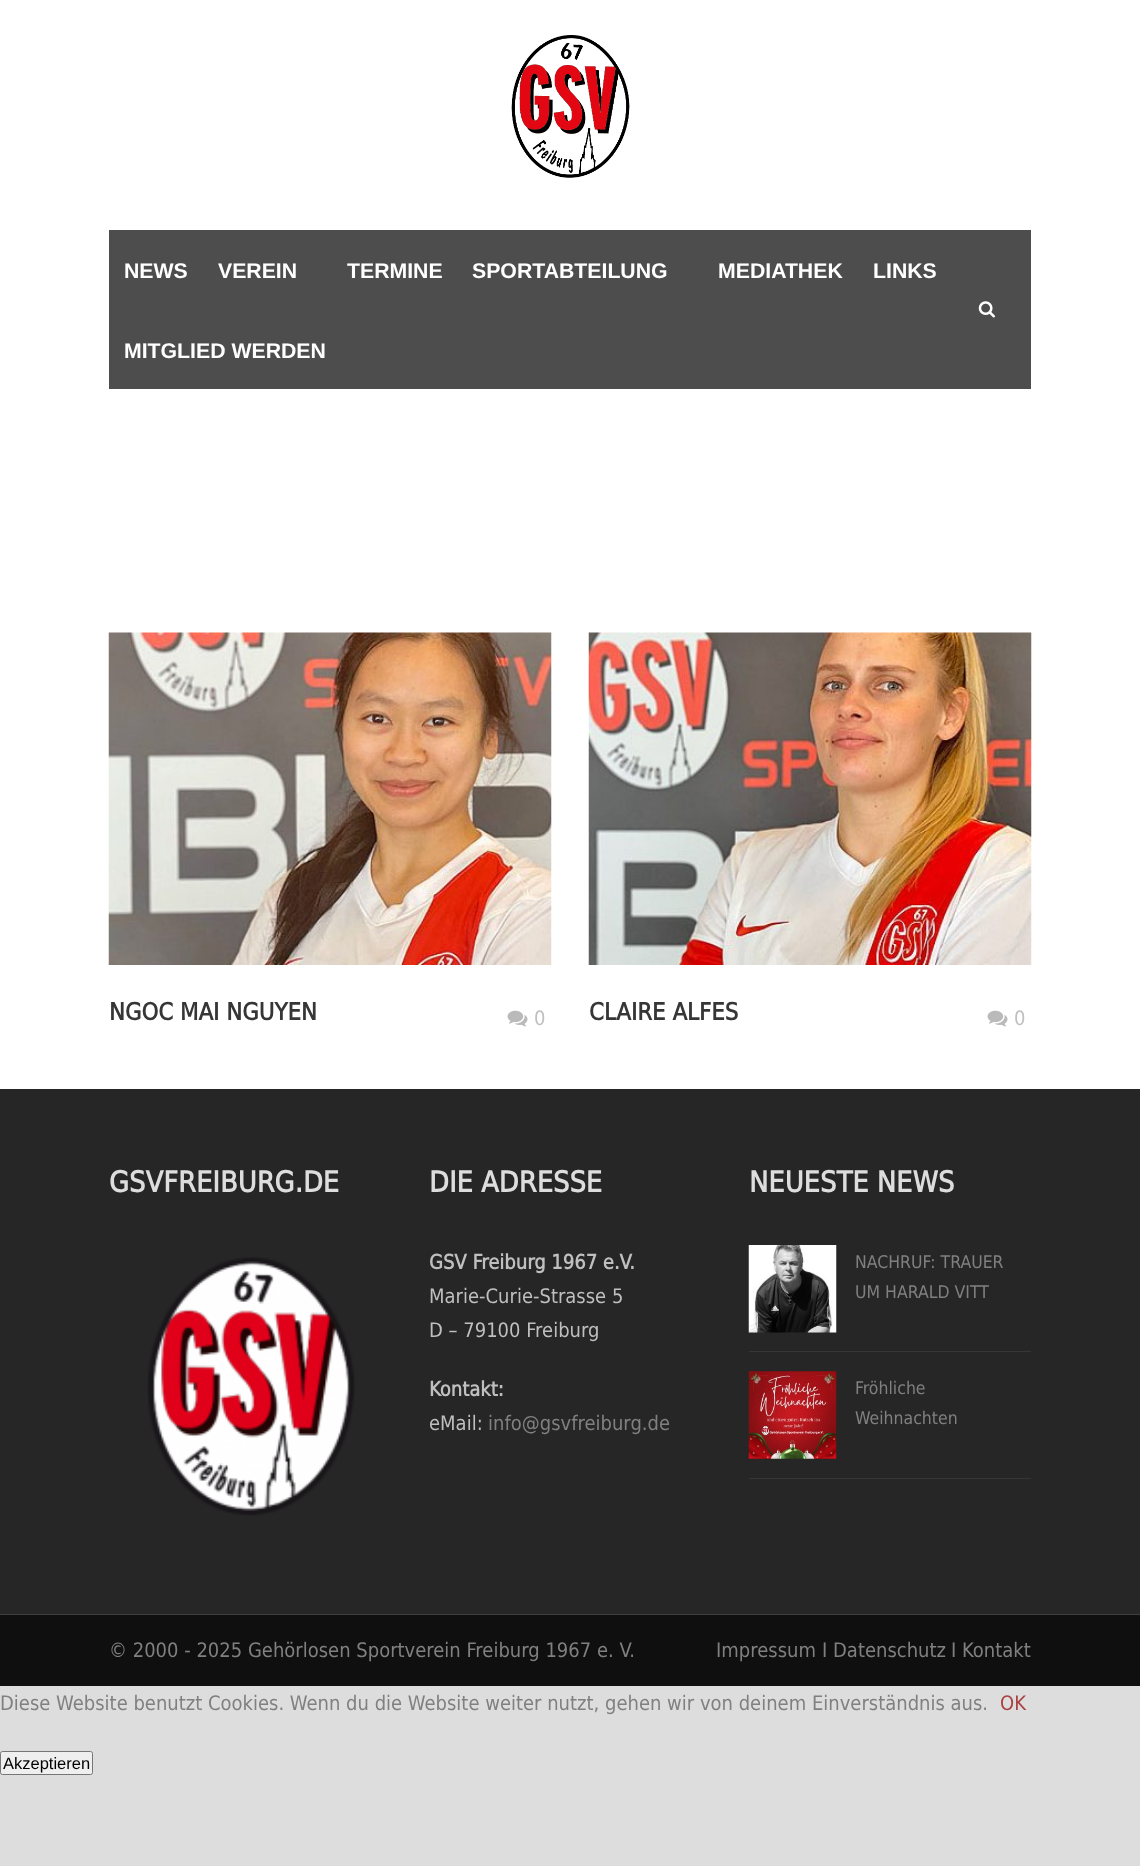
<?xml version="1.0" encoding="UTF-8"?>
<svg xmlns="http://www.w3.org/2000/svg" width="1140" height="1866">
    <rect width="100%" height="100%" fill="#DDDDDD"/>
    <rect x="0" y="0" width="1140" height="1089" fill="#FFFFFF"/>
    <image x="511" y="35" width="119" height="143" href="img_01.png"/>
    <rect x="109" y="230" width="922" height="159" fill="#4D4D4D"/>
    <text x="124" y="278" font-family="Liberation Sans" font-size="21.25" font-weight="700" fill="#FFFFFF">NEWS</text>
    <text x="218" y="278" font-family="Liberation Sans" font-size="21.25" font-weight="700" fill="#FFFFFF">VEREIN</text>
    <text x="347" y="278" font-family="Liberation Sans" font-size="21.25" font-weight="700" fill="#FFFFFF">TERMINE</text>
    <text x="472" y="278" font-family="Liberation Sans" font-size="21.25" font-weight="700" fill="#FFFFFF">SPORTABTEILUNG</text>
    <text x="718" y="278" font-family="Liberation Sans" font-size="21.25" font-weight="700" fill="#FFFFFF">MEDIATHEK</text>
    <text x="873" y="278" font-family="Liberation Sans" font-size="21.25" font-weight="700" fill="#FFFFFF">LINKS</text>
    <text x="124" y="358" font-family="Liberation Sans" font-size="21.25" font-weight="700" fill="#FFFFFF">MITGLIED WERDEN</text>
    <image x="978" y="301" width="17" height="17" href="img_02.png"/>
    <image x="108" y="632" width="444" height="333" href="img_03.png"/>
    <text x="109" y="1020" font-family="DejaVu Sans" font-size="23.75" font-weight="700" fill="#363636">NGOC MAI NGUYEN</text>
    <image x="507" y="1010" width="21" height="17" href="img_04.png"/>
    <text x="534" y="1025" font-family="DejaVu Sans" font-size="20" fill="#BFBFBF">0</text>
    <image x="588" y="632" width="444" height="333" href="img_05.png"/>
    <text x="589" y="1020" font-family="DejaVu Sans" font-size="23.75" font-weight="700" fill="#363636">CLAIRE ALFES</text>
    <image x="987" y="1010" width="21" height="17" href="img_04.png"/>
    <text x="1014" y="1025" font-family="DejaVu Sans" font-size="20" fill="#BFBFBF">0</text>
    <rect x="0" y="1089" width="1140" height="525" fill="#262626"/>
    <text x="109" y="1192" font-family="DejaVu Sans" font-size="28.75" font-weight="700" fill="#DDDDDD">GSVFREIBURG.DE</text>
    <image x="147" y="1257" width="208" height="259" href="img_06.png"/>
    <text x="429" y="1192" font-family="DejaVu Sans" font-size="28.75" font-weight="700" fill="#DDDDDD">DIE ADRESSE</text>
    <text x="429" y="1269" font-family="DejaVu Sans" font-size="20" font-weight="700" fill="#BFBFBF">GSV Freiburg 1967 e.V.</text>
    <text font-family="DejaVu Sans" font-size="20" fill="#BFBFBF">
        <tspan x="429" y="1303">Marie-Curie-Strasse 5</tspan>
        <tspan x="429" y="1337">D – 79100 Freiburg</tspan>
    </text>
    <text x="429" y="1396" font-family="DejaVu Sans" font-size="20" font-weight="700" fill="#BFBFBF">Kontakt:</text>
    <text x="429" y="1430" font-family="DejaVu Sans" font-size="20" fill="#BFBFBF">eMail:</text>
    <text x="488" y="1430" font-family="DejaVu Sans" font-size="20" fill="#808080">info@gsvfreiburg.de</text>
    <text x="749" y="1192" font-family="DejaVu Sans" font-size="28.75" font-weight="700" fill="#DDDDDD">NEUESTE NEWS</text>
    <rect x="749" y="1351" width="282" height="1" fill="#363636"/>
    <image x="748" y="1245" width="89" height="88" href="img_07.png"/>
    <text font-family="DejaVu Sans" font-size="17.5" fill="#808080">
        <tspan x="855" y="1268">NACHRUF: TRAUER</tspan>
        <tspan x="855" y="1298">UM HARALD VITT</tspan>
    </text>
    <rect x="749" y="1478" width="282" height="1" fill="#363636"/>
    <image x="748" y="1371" width="89" height="88" href="img_08.png"/>
    <text font-family="DejaVu Sans" font-size="17.5" fill="#808080">
        <tspan x="855" y="1394">Fröhliche</tspan>
        <tspan x="855" y="1424">Weihnachten</tspan>
    </text>
    <rect x="0" y="1615" width="1140" height="71" fill="#0F0F0F"/>
    <rect x="0" y="1614" width="1140" height="1" fill="#3F3F3F"/>
    <text x="109" y="1657" font-family="DejaVu Sans" font-size="20" fill="#808080">© 2000 - 2025 Gehörlosen Sportverein Freiburg 1967 e. V.</text>
    <text x="716" y="1657" font-family="DejaVu Sans" font-size="20" fill="#808080">Impressum</text>
    <text x="822" y="1657" font-family="DejaVu Sans" font-size="20" fill="#808080">I</text>
    <text x="833" y="1657" font-family="DejaVu Sans" font-size="20" fill="#808080">Datenschutz</text>
    <text x="951" y="1657" font-family="DejaVu Sans" font-size="20" fill="#808080">I</text>
    <text x="962" y="1657" font-family="DejaVu Sans" font-size="20" fill="#808080">Kontakt</text>
    <text x="0" y="1710" font-family="DejaVu Sans" font-size="20" fill="#808080">Diese Website benutzt Cookies. Wenn du die Website weiter nutzt, gehen wir von deinem Einverständnis aus.</text>
    <text x="1000" y="1710" font-family="DejaVu Sans" font-size="20" fill="#AA4243">OK</text>
    <rect x="0.5" y="1751.5" width="92" height="23" rx="2" fill="#EFEFEF" stroke="#767676"/>
    <text x="3" y="1769" font-family="Liberation Sans" font-size="16.5" fill="#000000">Akzeptieren</text>
</svg>
